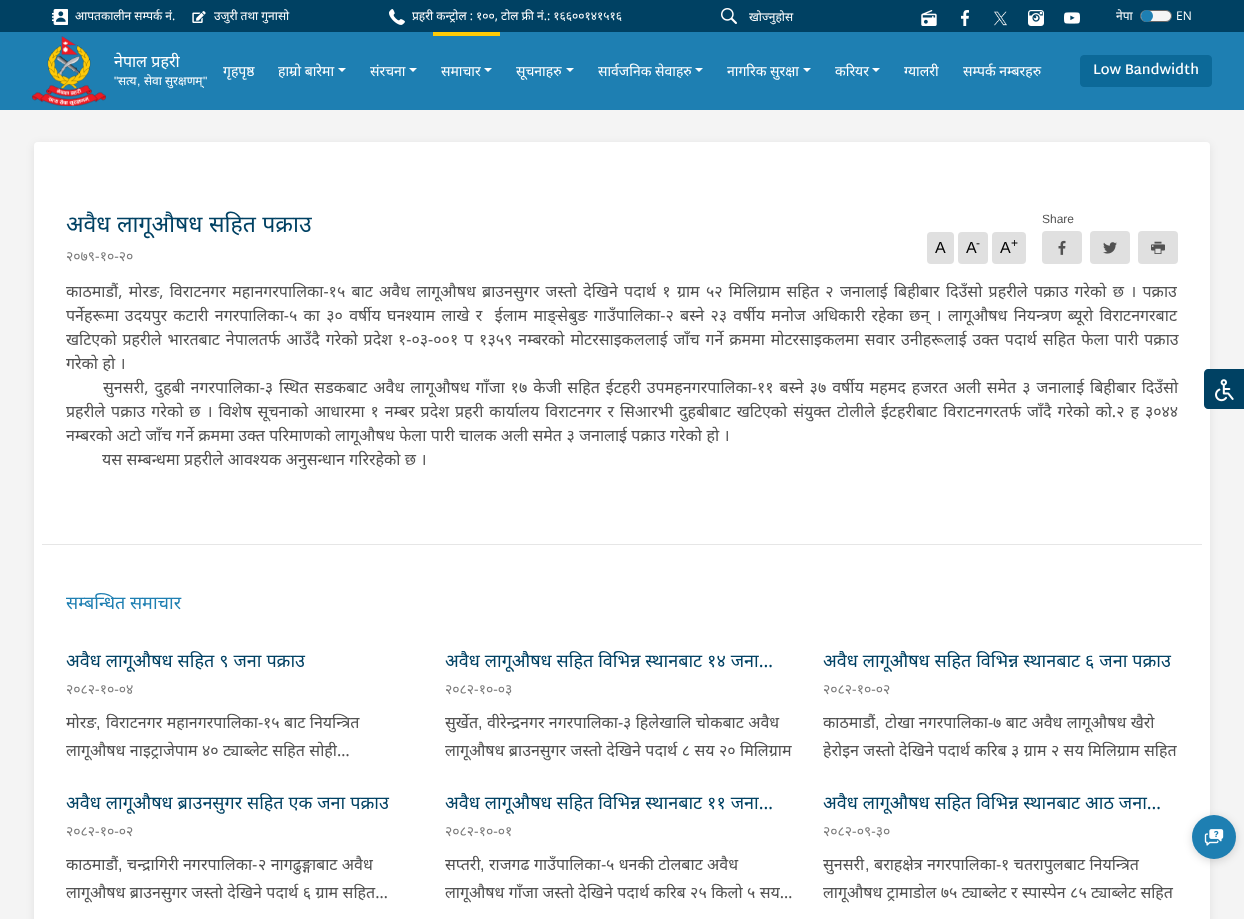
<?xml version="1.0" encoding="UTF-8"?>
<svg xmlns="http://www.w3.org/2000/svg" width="1244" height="919">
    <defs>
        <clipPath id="clip1"><rect x="749" y="8" width="156" height="17"/></clipPath>
        <filter id="blur1" x="-50%" y="-200%" width="200%" height="500%"><feGaussianBlur stdDeviation="4"/></filter>
        <clipPath id="clip2"><rect x="66" y="709" width="355" height="55"/></clipPath>
        <clipPath id="clip3"><rect x="445" y="709" width="354" height="55"/></clipPath>
        <clipPath id="clip4"><rect x="823" y="709" width="355" height="55"/></clipPath>
        <clipPath id="clip5"><rect x="823" y="851" width="355" height="55"/></clipPath>
    </defs>
    <rect width="100%" height="100%" fill="#F4F4F4"/>
    <rect x="0" y="0" width="1244" height="32" fill="#004163"/>
    <image x="52" y="9" width="16" height="16" href="img_01.png"/>
    <text x="75" y="20" font-family="Noto Sans" font-size="12" fill="#FFFFFF">आपतकालीन सम्पर्क नं.</text>
    <image x="192" y="11" width="14" height="12" href="img_02.png"/>
    <text x="214" y="20" font-family="Noto Sans" font-size="12" fill="#FFFFFF">उजुरी तथा गुनासो</text>
    <image x="389" y="9" width="16" height="16" href="img_03.png"/>
    <text x="412" y="20" font-family="Noto Sans" font-size="12" fill="#FFFFFF">प्रहरी कन्ट्रोल : १००, टोल फ्री नं.: १६६००१४१५१६</text>
    <image x="721" y="8" width="16" height="16" href="img_04.png"/>
    <g clip-path="url(#clip1)">
        <text x="749" y="21" font-family="Noto Sans" font-size="12" fill="#FFFFFF">खोज्नुहोस</text>
    </g>
    <image x="921" y="10" width="16" height="16" href="img_05.png"/>
    <image x="961" y="10" width="8" height="16" href="img_06.png"/>
    <image x="993" y="11" width="14" height="15" href="img_07.png"/>
    <image x="1028" y="10" width="16" height="16" href="img_08.png"/>
    <image x="1064" y="12" width="16" height="12" href="img_09.png"/>
    <text x="1116" y="20" font-family="Noto Sans" font-size="12" fill="#FFFFFF">नेपा</text>
    <rect x="1140.5" y="10.5" width="31" height="11" rx="5.5" fill="#F5F5F5" stroke="#666666"/>
    <circle cx="1147" cy="16" r="6" fill="#1E7FB2"/>
    <text x="1176" y="20" font-family="Open Sans" font-size="12" fill="#FFFFFF">EN</text>
    <rect x="0" y="32" width="1244" height="78" fill="#1E7FB2"/>
    <image x="32" y="36" width="74" height="70" href="img_10.png"/>
    <text x="114" y="67" word-spacing="0.25" font-family="Noto Sans" font-size="16" fill="#FFFFFF">नेपाल प्रहरी</text>
    <text x="114" y="85" font-family="Liberation Sans" font-size="12" fill="#FFFFFF">"</text>
    <text x="118" y="85" font-family="Noto Sans" font-size="12" fill="#FFFFFF">सत्य</text>
    <text x="137" y="85" font-family="Liberation Sans" font-size="12" fill="#FFFFFF">,</text>
    <text x="144" y="85" font-family="Noto Sans" font-size="12" fill="#FFFFFF">सेवा सुरक्षणम्</text>
    <text x="203" y="85" font-family="Liberation Sans" font-size="12" fill="#FFFFFF">"</text>
    <text x="223" y="76" font-family="Noto Sans" font-size="14" fill="#FFFFFF">गृहपृष्ठ</text>
    <text x="278" y="76" font-family="Noto Sans" font-size="14" fill="#FFFFFF">हाम्रो बारेमा</text>
    <path d="M 338 68 H 346 L 342 72 Z" fill="#FFFFFF"/>
    <text x="370" y="76" font-family="Noto Sans" font-size="14" fill="#FFFFFF">संरचना</text>
    <path d="M 409 68 H 417 L 413 72 Z" fill="#FFFFFF"/>
    <rect x="433" y="32" width="67" height="4" fill="#FFCB05"/>
    <text x="441" y="76" font-family="Noto Sans" font-size="14" fill="#FFFFFF">समाचार</text>
    <path d="M 484 68 H 492 L 488 72 Z" fill="#FFFFFF"/>
    <text x="516" y="76" font-family="Noto Sans" font-size="14" fill="#FFFFFF">सूचनाहरु</text>
    <path d="M 566 68 H 574 L 570 72 Z" fill="#FFFFFF"/>
    <text x="598" y="76" font-family="Noto Sans" font-size="14" fill="#FFFFFF">सार्वजनिक सेवाहरु</text>
    <path d="M 695 68 H 703 L 699 72 Z" fill="#FFFFFF"/>
    <text x="727" y="76" font-family="Noto Sans" font-size="14" fill="#FFFFFF">नागरिक सुरक्षा</text>
    <path d="M 803 68 H 811 L 807 72 Z" fill="#FFFFFF"/>
    <text x="835" y="76" font-family="Noto Sans" font-size="14" fill="#FFFFFF">करियर</text>
    <path d="M 872 68 H 880 L 876 72 Z" fill="#FFFFFF"/>
    <text x="904" y="76" font-family="Noto Sans" font-size="14" fill="#FFFFFF">ग्यालरी</text>
    <text x="963" y="76" font-family="Noto Sans" font-size="14" fill="#FFFFFF">सम्पर्क नम्बरहरु</text>
    <rect x="1080.5" y="55.5" width="131" height="31" rx="3.5" fill="#0C6998" stroke="#0C6998"/>
    <text x="1093" y="74" font-family="Martel Sans" font-size="14" font-weight="600" fill="#FFFFFF">Low Bandwidth</text>
    <rect x="34" y="144" width="1176" height="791" rx="4" fill="#000000" fill-opacity="0.08" filter="url(#blur1)"/>
    <rect x="34" y="142" width="1176" height="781" rx="4" fill="#FFFFFF"/>
    <text x="66" y="232" word-spacing="0.5" font-family="Noto Sans" font-size="23" fill="#004163">अवैध लागूऔषध सहित पक्राउ</text>
    <text x="66" y="261" font-family="Noto Sans" font-size="14" fill="#7A7A7A">२०७९-१०-२०</text>
    <text x="1042" y="223" font-family="Liberation Sans" font-size="12" fill="#525252">Share</text>
    <rect x="1042" y="231" width="40" height="33" rx="4" fill="#E0E0E0"/>
    <image x="1058" y="240" width="8" height="15" href="img_11.png"/>
    <rect x="1090" y="231" width="40" height="33" rx="4" fill="#E0E0E0"/>
    <image x="1103" y="242" width="14" height="12" href="img_12.png"/>
    <rect x="1138" y="231" width="40" height="33" rx="4" fill="#E0E0E0"/>
    <image x="1151" y="241" width="14" height="13" href="img_13.png"/>
    <rect x="927" y="232" width="27" height="32" rx="4" fill="#E0E0E0"/>
    <text x="935" y="253" font-family="Liberation Sans" font-size="16" fill="#000000">A</text>
    <rect x="958" y="232" width="30" height="32" rx="4" fill="#E0E0E0"/>
    <text x="966" y="253" font-family="Liberation Sans" font-size="16" fill="#000000">A</text>
    <text x="976" y="247" font-family="Liberation Sans" font-size="12" fill="#000000">-</text>
    <rect x="992" y="232" width="34" height="32" rx="4" fill="#E0E0E0"/>
    <text x="1000" y="253" font-family="Liberation Sans" font-size="16" fill="#000000">A</text>
    <text x="1011" y="247" font-family="Liberation Sans" font-size="12" fill="#000000">+</text>
    <text font-family="Noto Sans" font-size="16" fill="#525252" xml:space="preserve"><tspan x="66" y="297" word-spacing="2.1">काठमाडौं, मोरङ, विराटनगर महानगरपालिका-१५ बाट अवैध लागूऔषध ब्राउनसुगर जस्तो देखिने पदार्थ १ ग्राम ५२ मिलिग्राम सहित २ जनालाई बिहीबार दिउँसो प्रहरीले पक्राउ गरेको छ । पक्राउ</tspan><tspan x="66" y="321" word-spacing="2.1">पर्नेहरूमा उदयपुर कटारी नगरपालिका-५ का ३० वर्षीय घनश्याम लाखे र  ईलाम माङ्सेबुङ गाउँपालिका-२ बस्ने २३ वर्षीय मनोज अधिकारी रहेका छन् । लागूऔषध नियन्त्रण ब्यूरो विराटनगरबाट</tspan><tspan x="66" y="345" word-spacing="1.75">खटिएको प्रहरीले भारतबाट नेपालतर्फ आउँदै गरेको प्रदेश १-०३-००१ प १३५९ नम्बरको मोटरसाइकललाई जाँच गर्ने क्रममा मोटरसाइकलमा सवार उनीहरूलाई उक्त पदार्थ सहित फेला पारी पक्राउ</tspan><tspan x="66" y="369" word-spacing="0.25">गरेको हो ।</tspan></text>
    <text x="103" y="393" word-spacing="1.75" font-family="Noto Sans" font-size="16" fill="#525252">सुनसरी, दुहबी नगरपालिका-३ स्थित सडकबाट अवैध लागूऔषध गाँजा १७ केजी सहित ईटहरी उपमहनगरपालिका-११ बस्ने ३७ वर्षीय महमद हजरत अली समेत ३ जनालाई बिहीबार दिउँसो</text>
    <text font-family="Noto Sans" font-size="16" fill="#525252">
        <tspan x="66" y="417" word-spacing="1.8">प्रहरीले पक्राउ गरेको छ । विशेष सूचनाको आधारमा १ नम्बर प्रदेश प्रहरी कार्यालय विराटनगर र सिआरभी दुहबीबाट खटिएको संयुक्त टोलीले ईटहरीबाट विराटनगरतर्फ जाँदै गरेको को.२ ह ३०४४</tspan>
        <tspan x="66" y="441" word-spacing="0.25">नम्बरको अटो जाँच गर्ने क्रममा उक्त परिमाणको लागूऔषध फेला पारी चालक अली समेत ३ जनालाई पक्राउ गरेको हो ।</tspan>
    </text>
    <text x="102" y="465" word-spacing="0.25" font-family="Noto Sans" font-size="16" fill="#525252">यस सम्बन्धमा प्रहरीले आवश्यक अनुसन्धान गरिरहेको छ ।</text>
    <rect x="42" y="544" width="1160" height="1" fill="#E6E6E6"/>
    <text x="66" y="609" font-family="Noto Sans" font-size="18" fill="#1E7FB2">सम्बन्धित समाचार</text>
    <text x="66" y="667" word-spacing="0.25" font-family="Noto Sans" font-size="18" fill="#004163">अवैध लागूऔषध सहित ९ जना पक्राउ</text>
    <text x="66" y="694" font-family="Noto Sans" font-size="14" fill="#7A7A7A">२०८२-१०-०४</text>
    <g clip-path="url(#clip2)">
        <text x="66" y="728" font-family="Noto Sans" font-size="16" fill="#525252">मोरङ</text>
    </g>
    <text x="106" y="728" word-spacing="0.25" font-family="Noto Sans" font-size="16" fill="#525252">विराटनगर महानगरपालिका</text>
    <text x="258" y="728" font-family="Liberation Sans" font-size="16" fill="#525252">-</text>
    <text x="263" y="728" word-spacing="0.25" font-family="Noto Sans" font-size="16" fill="#525252">१५ बाट नियन्त्रित</text>
    <text x="96" y="728" font-family="Liberation Sans" font-size="16" fill="#525252">,</text>
    <text x="66" y="756" word-spacing="0.25" font-family="Noto Sans" font-size="16" fill="#525252">लागूऔषध नाइट्राजेपाम ४० ट्याब्लेट सहित सोही…</text>
    <text x="445" y="667" word-spacing="0.25" font-family="Noto Sans" font-size="18" fill="#004163">अवैध लागूऔषध सहित विभिन्न स्थानबाट १४ जना…</text>
    <text x="445" y="694" font-family="Noto Sans" font-size="14" fill="#7A7A7A">२०८२-१०-०३</text>
    <g clip-path="url(#clip3)">
        <text x="445" y="728" font-family="Noto Sans" font-size="16" fill="#525252">सुर्खेत</text>
    </g>
    <text x="487" y="728" word-spacing="0.25" font-family="Noto Sans" font-size="16" fill="#525252">वीरेन्द्रनगर नगरपालिका</text>
    <text x="618" y="728" font-family="Liberation Sans" font-size="16" fill="#525252">-</text>
    <text x="623" y="728" word-spacing="0.25" font-family="Noto Sans" font-size="16" fill="#525252">३ हिलेखालि चोकबाट अवैध</text>
    <text x="478" y="728" font-family="Liberation Sans" font-size="16" fill="#525252">,</text>
    <text x="445" y="756" word-spacing="0.25" font-family="Noto Sans" font-size="16" fill="#525252">लागूऔषध ब्राउनसुगर जस्तो देखिने पदार्थ ८ सय २० मिलिग्राम</text>
    <text x="823" y="667" word-spacing="0.25" font-family="Noto Sans" font-size="18" fill="#004163">अवैध लागूऔषध सहित विभिन्न स्थानबाट ६ जना पक्राउ</text>
    <text x="823" y="694" font-family="Noto Sans" font-size="14" fill="#7A7A7A">२०८२-१०-०२</text>
    <text x="823" y="728" font-family="Noto Sans" font-size="16" fill="#525252">काठमाडौं</text>
    <text x="885" y="728" word-spacing="0.25" font-family="Noto Sans" font-size="16" fill="#525252">टोखा नगरपालिका</text>
    <text x="988" y="728" font-family="Liberation Sans" font-size="16" fill="#525252">-</text>
    <text x="993" y="728" word-spacing="0.25" font-family="Noto Sans" font-size="16" fill="#525252">७ बाट अवैध लागूऔषध खैरो</text>
    <text x="875" y="728" font-family="Liberation Sans" font-size="16" fill="#525252">,</text>
    <g clip-path="url(#clip4)">
        <text x="823" y="756" word-spacing="0.25" font-family="Noto Sans" font-size="16" fill="#525252">हेरोइन जस्तो देखिने पदार्थ करिब ३ ग्राम २ सय मिलिग्राम सहित</text>
    </g>
    <text x="66" y="809" word-spacing="0.25" font-family="Noto Sans" font-size="18" fill="#004163">अवैध लागूऔषध ब्राउनसुगर सहित एक जना पक्राउ</text>
    <text x="66" y="836" font-family="Noto Sans" font-size="14" fill="#7A7A7A">२०८२-१०-०२</text>
    <text x="66" y="870" font-family="Noto Sans" font-size="16" fill="#525252">काठमाडौं</text>
    <text x="127" y="870" word-spacing="0.25" font-family="Noto Sans" font-size="16" fill="#525252">चन्द्रागिरी नगरपालिका</text>
    <text x="252" y="870" font-family="Liberation Sans" font-size="16" fill="#525252">-</text>
    <text x="258" y="870" word-spacing="0.25" font-family="Noto Sans" font-size="16" fill="#525252">२ नागढुङ्गाबाट अवैध</text>
    <text x="118" y="870" font-family="Liberation Sans" font-size="16" fill="#525252">,</text>
    <text x="66" y="898" word-spacing="0.25" font-family="Noto Sans" font-size="16" fill="#525252">लागूऔषध ब्राउनसुगर जस्तो देखिने पदार्थ ६ ग्राम सहित…</text>
    <text x="445" y="809" word-spacing="0.25" font-family="Noto Sans" font-size="18" fill="#004163">अवैध लागूऔषध सहित विभिन्न स्थानबाट ११ जना…</text>
    <text x="445" y="836" font-family="Noto Sans" font-size="14" fill="#7A7A7A">२०८२-१०-०१</text>
    <text x="445" y="870" font-family="Noto Sans" font-size="16" fill="#525252">सप्तरी</text>
    <text x="489" y="870" word-spacing="0.25" font-family="Noto Sans" font-size="16" fill="#525252">राजगढ गाउँपालिका</text>
    <text x="601" y="870" font-family="Liberation Sans" font-size="16" fill="#525252">-</text>
    <text x="606" y="870" word-spacing="0.25" font-family="Noto Sans" font-size="16" fill="#525252">५ धनकी टोलबाट अवैध</text>
    <text x="480" y="870" font-family="Liberation Sans" font-size="16" fill="#525252">,</text>
    <text x="445" y="898" word-spacing="0.25" font-family="Noto Sans" font-size="16" fill="#525252">लागूऔषध गाँजा जस्तो देखिने पदार्थ करिब २५ किलो ५ सय…</text>
    <text x="823" y="809" word-spacing="0.25" font-family="Noto Sans" font-size="18" fill="#004163">अवैध लागूऔषध सहित विभिन्न स्थानबाट आठ जना…</text>
    <text x="823" y="836" font-family="Noto Sans" font-size="14" fill="#7A7A7A">२०८२-०९-३०</text>
    <g clip-path="url(#clip5)">
        <text x="823" y="870" font-family="Noto Sans" font-size="16" fill="#525252">सुनसरी</text>
    </g>
    <text x="874" y="870" word-spacing="0.25" font-family="Noto Sans" font-size="16" fill="#525252">बराहक्षेत्र नगरपालिका</text>
    <text x="996" y="870" font-family="Liberation Sans" font-size="16" fill="#525252">-</text>
    <text x="1001" y="870" word-spacing="0.25" font-family="Noto Sans" font-size="16" fill="#525252">१ चतरापुलबाट नियन्त्रित</text>
    <text x="865" y="870" font-family="Liberation Sans" font-size="16" fill="#525252">,</text>
    <text x="823" y="898" word-spacing="0.25" font-family="Noto Sans" font-size="16" fill="#525252">लागूऔषध ट्रामाडोल ७५ ट्याब्लेट र स्पास्पेन ८५ ट्याब्लेट सहित</text>
    <rect x="1192" y="817" width="44" height="44" rx="22" fill="#000000" fill-opacity="0.16" filter="url(#blur1)"/>
    <circle cx="1214" cy="837" r="22" fill="#1E7FB2"/>
    <image x="1204" y="829" width="20" height="17" href="img_14.png"/>
    <path d="M 1208 369 H 1244 V 409 H 1208 C 1206 409 1204 407 1204 405 V 373 C 1204 371 1206 369 1208 369 Z" fill="#004163"/>
    <image x="1215" y="379" width="19" height="23" href="img_15.png"/>
</svg>
